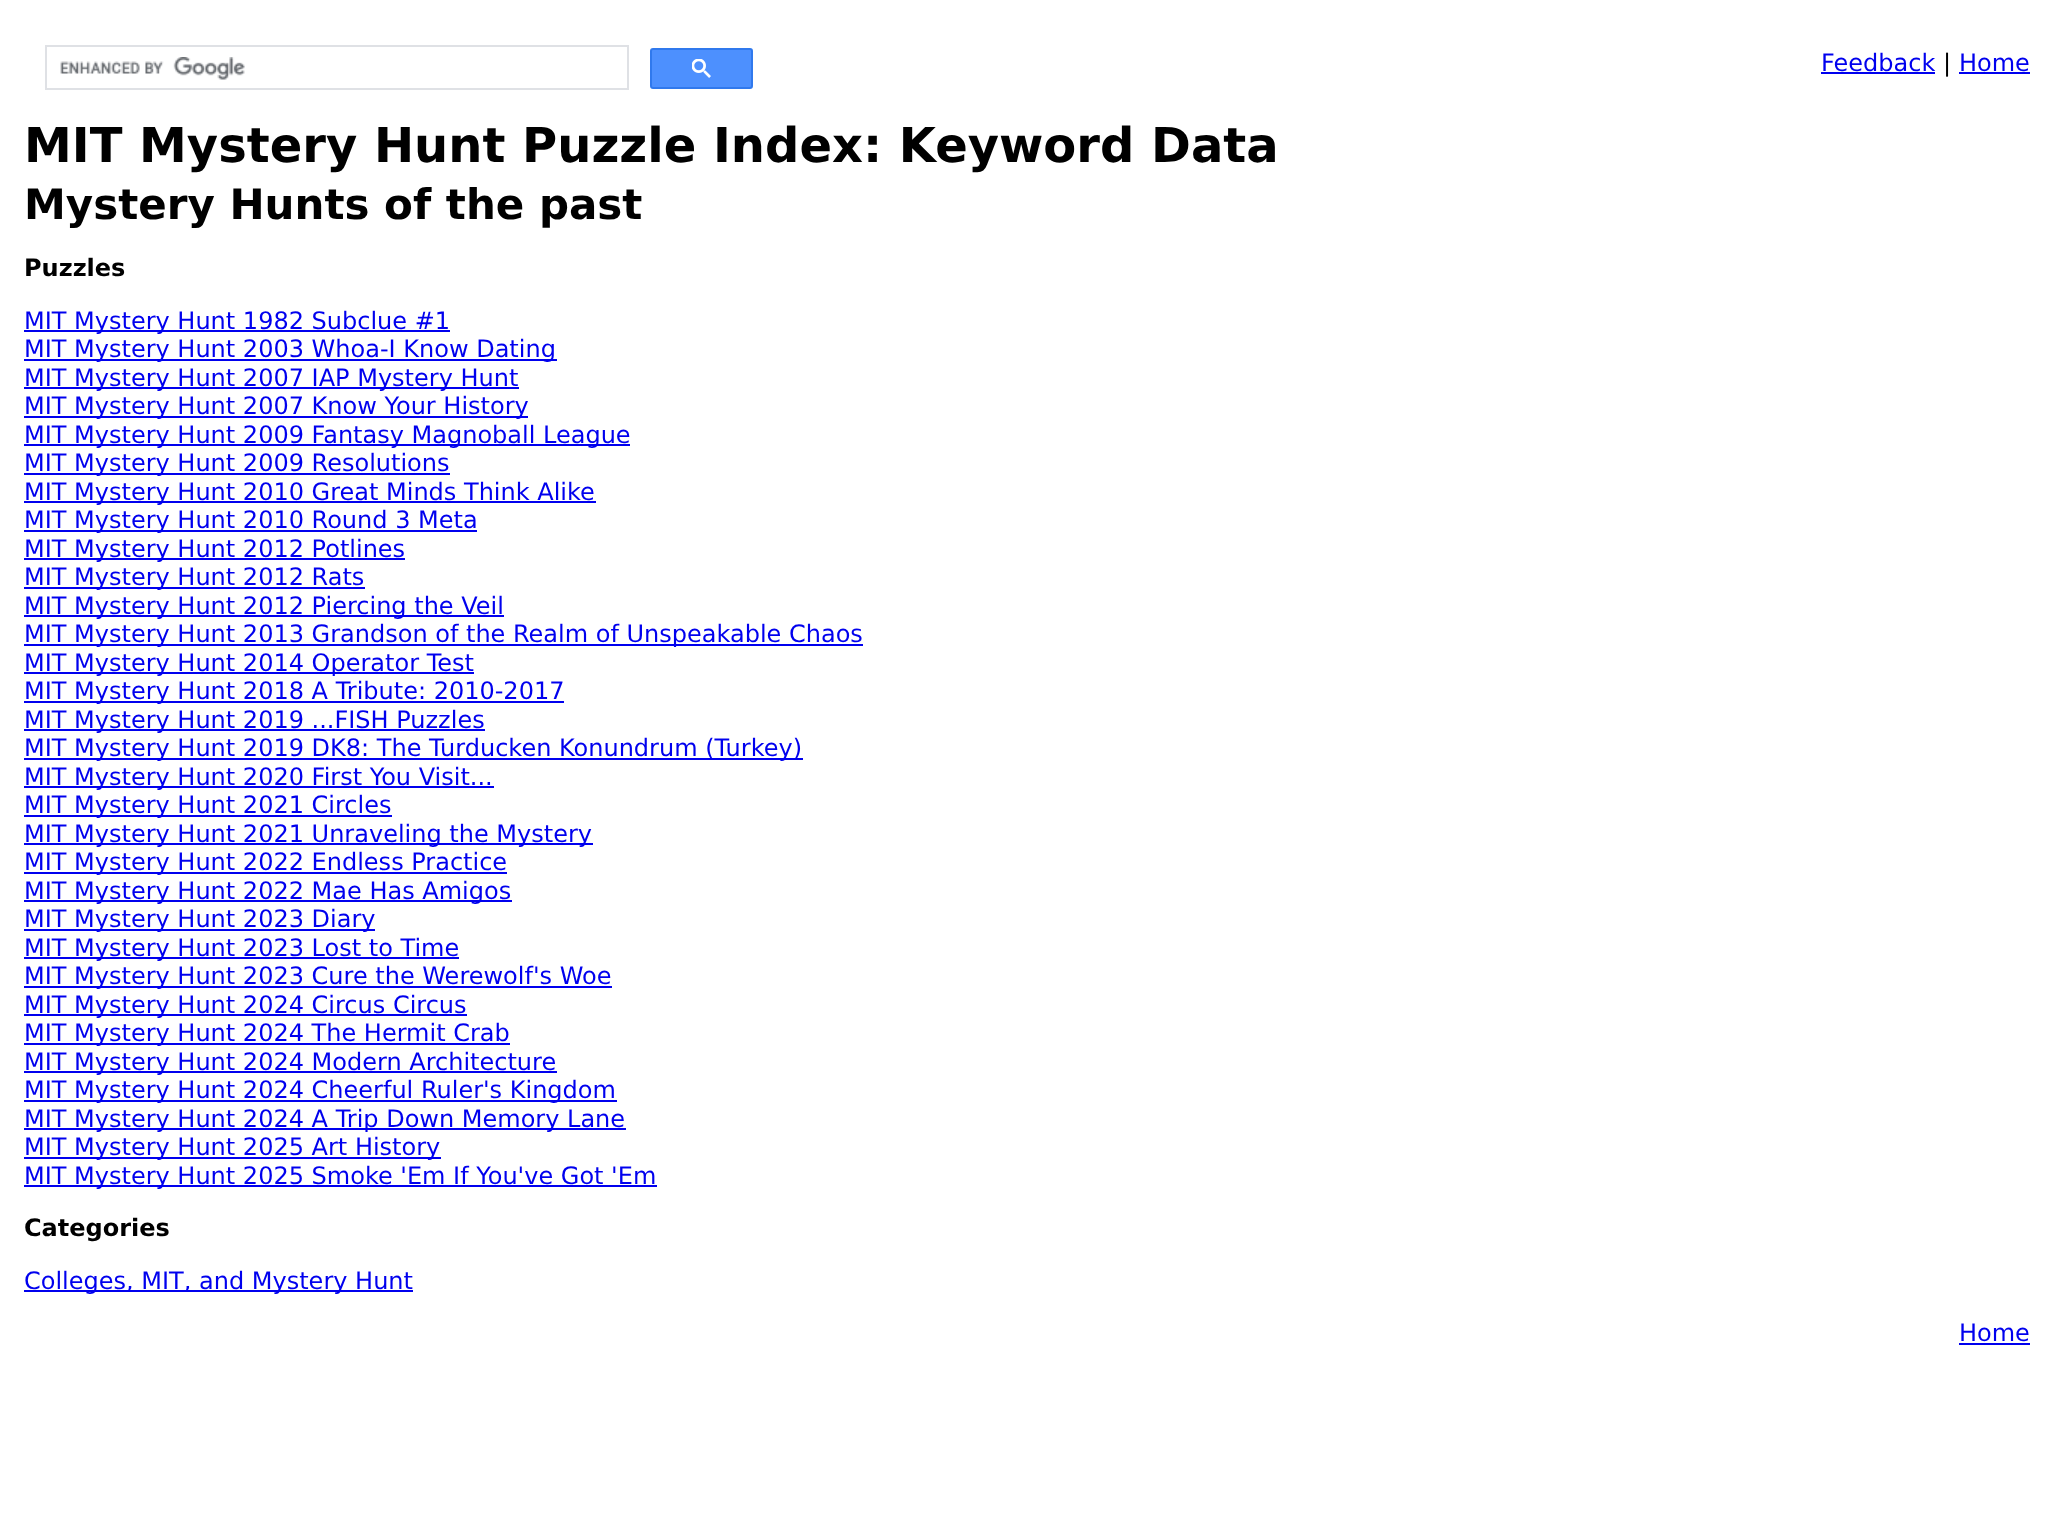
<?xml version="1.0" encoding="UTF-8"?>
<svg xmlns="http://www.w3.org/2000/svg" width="2053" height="1513">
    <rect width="100%" height="100%" fill="#FFFFFF"/>
    <rect x="46" y="46" width="582" height="43" fill="none" stroke="#DFE1E5" stroke-width="2"/>
    <image x="60" y="57" width="185" height="23" href="img_01.png"/>
    <rect x="651" y="49" width="101" height="39" rx="2" fill="#4D90FE" stroke="#3079ED" stroke-width="2"/>
    <image x="692" y="59" width="19" height="19" href="img_02.png"/>
    <text x="1821" y="71" font-family="DejaVu Sans" font-size="24" fill="#0000EE">Feedback</text>
    <rect x="1821" y="72" width="114" height="2" fill="#0000EE"/>
    <text x="1943" y="71" font-family="DejaVu Sans" font-size="24" fill="#000000">|</text>
    <text x="1959" y="71" font-family="DejaVu Sans" font-size="24" fill="#0000EE">Home</text>
    <rect x="1959" y="72" width="71" height="2" fill="#0000EE"/>
    <text x="24" y="162" font-family="DejaVu Sans" font-size="48" font-weight="700" fill="#000000">MIT Mystery Hunt Puzzle Index: Keyword Data</text>
    <text x="24" y="219" font-family="DejaVu Sans" font-size="42" font-weight="700" fill="#000000">Mystery Hunts of the past</text>
    <text x="24" y="276" font-family="DejaVu Sans" font-size="24" font-weight="700" fill="#000000">Puzzles</text>
    <rect x="24" y="330" width="426" height="2" fill="#0000EE"/>
    <text x="24" y="329" font-family="DejaVu Sans" font-size="24" fill="#0000EE">MIT Mystery Hunt 1982 Subclue #1</text>
    <rect x="24" y="359" width="533" height="2" fill="#0000EE"/>
    <text x="24" y="357" font-family="DejaVu Sans" font-size="24" fill="#0000EE">MIT Mystery Hunt 2003 Whoa-I Know Dating</text>
    <rect x="24" y="387" width="495" height="2" fill="#0000EE"/>
    <text x="24" y="386" font-family="DejaVu Sans" font-size="24" fill="#0000EE">MIT Mystery Hunt 2007 IAP Mystery Hunt</text>
    <rect x="24" y="416" width="504" height="2" fill="#0000EE"/>
    <text x="24" y="414" font-family="DejaVu Sans" font-size="24" fill="#0000EE">MIT Mystery Hunt 2007 Know Your History</text>
    <rect x="24" y="444" width="606" height="2" fill="#0000EE"/>
    <text x="24" y="443" font-family="DejaVu Sans" font-size="24" fill="#0000EE">MIT Mystery Hunt 2009 Fantasy Magnoball League</text>
    <rect x="24" y="473" width="426" height="2" fill="#0000EE"/>
    <text x="24" y="471" font-family="DejaVu Sans" font-size="24" fill="#0000EE">MIT Mystery Hunt 2009 Resolutions</text>
    <rect x="24" y="501" width="572" height="2" fill="#0000EE"/>
    <text x="24" y="500" font-family="DejaVu Sans" font-size="24" fill="#0000EE">MIT Mystery Hunt 2010 Great Minds Think Alike</text>
    <rect x="24" y="530" width="453" height="2" fill="#0000EE"/>
    <text x="24" y="528" font-family="DejaVu Sans" font-size="24" fill="#0000EE">MIT Mystery Hunt 2010 Round 3 Meta</text>
    <rect x="24" y="558" width="381" height="2" fill="#0000EE"/>
    <text x="24" y="557" font-family="DejaVu Sans" font-size="24" fill="#0000EE">MIT Mystery Hunt 2012 Potlines</text>
    <rect x="24" y="587" width="341" height="2" fill="#0000EE"/>
    <text x="24" y="585" font-family="DejaVu Sans" font-size="24" fill="#0000EE">MIT Mystery Hunt 2012 Rats</text>
    <rect x="24" y="615" width="480" height="2" fill="#0000EE"/>
    <text x="24" y="614" font-family="DejaVu Sans" font-size="24" fill="#0000EE">MIT Mystery Hunt 2012 Piercing the Veil</text>
    <rect x="24" y="644" width="839" height="2" fill="#0000EE"/>
    <text x="24" y="642" font-family="DejaVu Sans" font-size="24" fill="#0000EE">MIT Mystery Hunt 2013 Grandson of the Realm of Unspeakable Chaos</text>
    <rect x="24" y="672" width="450" height="2" fill="#0000EE"/>
    <text x="24" y="671" font-family="DejaVu Sans" font-size="24" fill="#0000EE">MIT Mystery Hunt 2014 Operator Test</text>
    <rect x="24" y="701" width="540" height="2" fill="#0000EE"/>
    <text x="24" y="699" font-family="DejaVu Sans" font-size="24" fill="#0000EE">MIT Mystery Hunt 2018 A Tribute: 2010-2017</text>
    <rect x="24" y="729" width="461" height="2" fill="#0000EE"/>
    <text x="24" y="728" font-family="DejaVu Sans" font-size="24" fill="#0000EE">MIT Mystery Hunt 2019 ...FISH Puzzles</text>
    <rect x="24" y="758" width="779" height="2" fill="#0000EE"/>
    <text x="24" y="756" font-family="DejaVu Sans" font-size="24" fill="#0000EE">MIT Mystery Hunt 2019 DK8: The Turducken Konundrum (Turkey)</text>
    <rect x="24" y="786" width="470" height="2" fill="#0000EE"/>
    <text x="24" y="785" font-family="DejaVu Sans" font-size="24" fill="#0000EE">MIT Mystery Hunt 2020 First You Visit...</text>
    <rect x="24" y="815" width="368" height="2" fill="#0000EE"/>
    <text x="24" y="813" font-family="DejaVu Sans" font-size="24" fill="#0000EE">MIT Mystery Hunt 2021 Circles</text>
    <rect x="24" y="843" width="569" height="2" fill="#0000EE"/>
    <text x="24" y="842" font-family="DejaVu Sans" font-size="24" fill="#0000EE">MIT Mystery Hunt 2021 Unraveling the Mystery</text>
    <rect x="24" y="872" width="483" height="2" fill="#0000EE"/>
    <text x="24" y="870" font-family="DejaVu Sans" font-size="24" fill="#0000EE">MIT Mystery Hunt 2022 Endless Practice</text>
    <rect x="24" y="900" width="488" height="2" fill="#0000EE"/>
    <text x="24" y="899" font-family="DejaVu Sans" font-size="24" fill="#0000EE">MIT Mystery Hunt 2022 Mae Has Amigos</text>
    <rect x="24" y="929" width="351" height="2" fill="#0000EE"/>
    <text x="24" y="927" font-family="DejaVu Sans" font-size="24" fill="#0000EE">MIT Mystery Hunt 2023 Diary</text>
    <rect x="24" y="957" width="435" height="2" fill="#0000EE"/>
    <text x="24" y="956" font-family="DejaVu Sans" font-size="24" fill="#0000EE">MIT Mystery Hunt 2023 Lost to Time</text>
    <rect x="24" y="986" width="588" height="2" fill="#0000EE"/>
    <text x="24" y="984" font-family="DejaVu Sans" font-size="24" fill="#0000EE">MIT Mystery Hunt 2023 Cure the Werewolf's Woe</text>
    <rect x="24" y="1014" width="443" height="2" fill="#0000EE"/>
    <text x="24" y="1013" font-family="DejaVu Sans" font-size="24" fill="#0000EE">MIT Mystery Hunt 2024 Circus Circus</text>
    <rect x="24" y="1043" width="486" height="2" fill="#0000EE"/>
    <text x="24" y="1041" font-family="DejaVu Sans" font-size="24" fill="#0000EE">MIT Mystery Hunt 2024 The Hermit Crab</text>
    <rect x="24" y="1071" width="533" height="2" fill="#0000EE"/>
    <text x="24" y="1070" font-family="DejaVu Sans" font-size="24" fill="#0000EE">MIT Mystery Hunt 2024 Modern Architecture</text>
    <rect x="24" y="1100" width="593" height="2" fill="#0000EE"/>
    <text x="24" y="1098" font-family="DejaVu Sans" font-size="24" fill="#0000EE">MIT Mystery Hunt 2024 Cheerful Ruler's Kingdom</text>
    <rect x="24" y="1128" width="602" height="2" fill="#0000EE"/>
    <text x="24" y="1127" font-family="DejaVu Sans" font-size="24" fill="#0000EE">MIT Mystery Hunt 2024 A Trip Down Memory Lane</text>
    <rect x="24" y="1157" width="417" height="2" fill="#0000EE"/>
    <text x="24" y="1155" font-family="DejaVu Sans" font-size="24" fill="#0000EE">MIT Mystery Hunt 2025 Art History</text>
    <rect x="24" y="1185" width="633" height="2" fill="#0000EE"/>
    <text x="24" y="1184" font-family="DejaVu Sans" font-size="24" fill="#0000EE">MIT Mystery Hunt 2025 Smoke 'Em If You've Got 'Em</text>
    <text x="24" y="1236" font-family="DejaVu Sans" font-size="24" font-weight="700" fill="#000000">Categories</text>
    <rect x="24" y="1290" width="389" height="2" fill="#0000EE"/>
    <text x="24" y="1289" font-family="DejaVu Sans" font-size="24" fill="#0000EE">Colleges, MIT, and Mystery Hunt</text>
    <text x="1959" y="1341" font-family="DejaVu Sans" font-size="24" fill="#0000EE">Home</text>
    <rect x="1959" y="1343" width="71" height="2" fill="#0000EE"/>
</svg>
